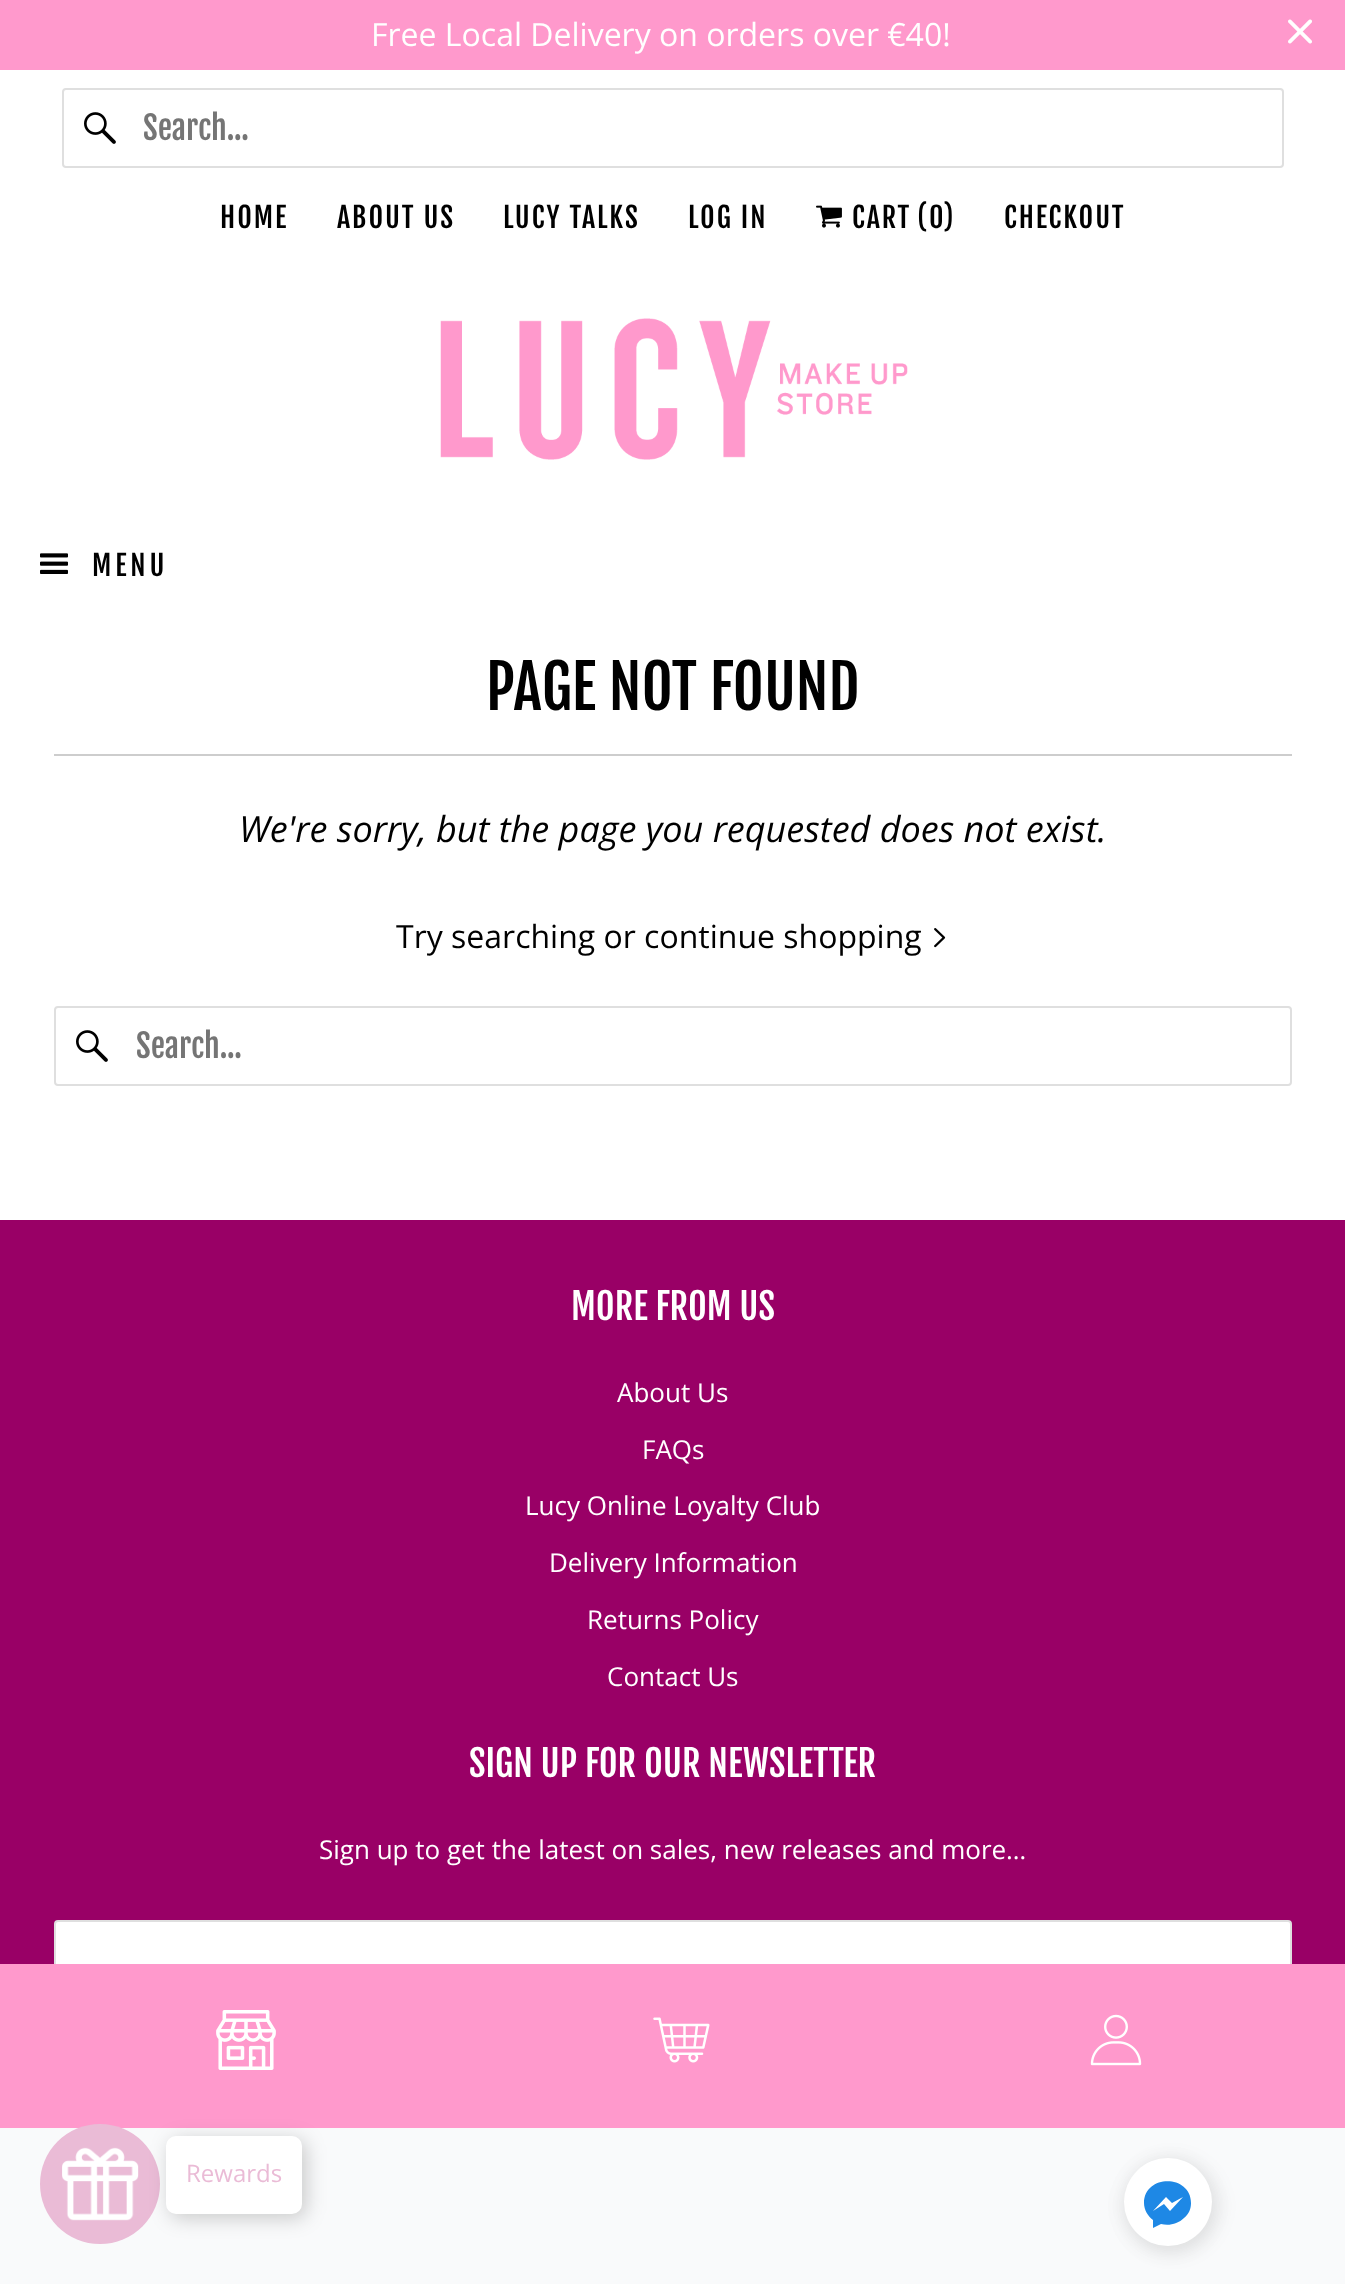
<?xml version="1.0" encoding="UTF-8"?>
<svg xmlns="http://www.w3.org/2000/svg" width="1345" height="2284">
    <defs>
        <filter id="blur1" x="-50%" y="-200%" width="200%" height="500%"><feGaussianBlur stdDeviation="10"/></filter>
        <filter id="blur2" x="-50%" y="-200%" width="200%" height="500%"><feGaussianBlur stdDeviation="9"/></filter>
    </defs>
    <rect width="100%" height="100%" fill="#FFFFFF"/>
    <rect x="0" y="0" width="1345" height="70" fill="#FF99CC"/>
    <text x="371" y="46" font-family="Open Sans" font-size="32" fill="#FFFFFF">Free Local Delivery on orders over €40!</text>
    <image x="1288" y="19" width="24" height="25" href="img_01.png"/>
    <rect x="63" y="89" width="1220" height="78" rx="3" fill="none" stroke="#DFDFDF" stroke-width="2"/>
    <image x="84" y="112" width="32" height="32" href="img_02.png"/>
    <text x="143" y="140" font-family="Fjalla One" font-size="32" fill="#757575">Search...</text>
    <text x="220" y="228" font-family="Fjalla One" font-size="28" letter-spacing="2" fill="#000000">HOME</text>
    <text x="337" y="228" font-family="Fjalla One" font-size="28" letter-spacing="2" fill="#000000">ABOUT US</text>
    <text x="503" y="228" font-family="Fjalla One" font-size="28" letter-spacing="2" fill="#000000">LUCY TALKS</text>
    <text x="688" y="228" font-family="Fjalla One" font-size="28" letter-spacing="2" fill="#000000">LOG IN</text>
    <image x="816" y="205" width="26" height="23" href="img_03.png"/>
    <text x="852" y="228" word-spacing="-2" font-family="Fjalla One" font-size="28" letter-spacing="2" fill="#000000">CART (</text>
    <text x="929" y="228" font-family="Fjalla One" font-size="28" letter-spacing="2" fill="#000000">0</text>
    <text x="943" y="228" font-family="Fjalla One" font-size="28" letter-spacing="2" fill="#000000">)</text>
    <text x="1004" y="228" font-family="Fjalla One" font-size="28" letter-spacing="2" fill="#000000">CHECKOUT</text>
    <image x="440" y="318" width="468" height="142" href="img_04.png"/>
    <image x="40" y="553" width="28" height="21" href="img_05.png"/>
    <text x="92" y="576" font-family="Fjalla One" font-size="28" letter-spacing="4" fill="#000000">MENU</text>
    <rect x="54" y="754" width="1238" height="2" fill="#CDCDCD"/>
    <text x="486" y="710" font-family="Fjalla One" font-size="60" fill="#000000">PAGE NOT FOUND</text>
    <text x="239" y="842" font-family="Open Sans" font-size="36" font-style="italic" fill="#000000">We're sorry, but the page you requested does not exist.</text>
    <text x="396" y="948" font-family="Open Sans" font-size="32" fill="#000000">Try searching or continue shopping</text>
    <image x="934" y="928" width="12" height="20" href="img_06.png"/>
    <rect x="55" y="1007" width="1236" height="78" rx="3" fill="none" stroke="#DFDFDF" stroke-width="2"/>
    <image x="76" y="1030" width="32" height="32" href="img_02.png"/>
    <text x="136" y="1058" font-family="Fjalla One" font-size="32" fill="#757575">Search...</text>
    <rect x="0" y="1220" width="1345" height="744" fill="#990066"/>
    <text x="571" y="1320" font-family="Fjalla One" font-size="36" fill="#FFFFFF">MORE FROM US</text>
    <text x="617" y="1402" font-family="Open Sans" font-size="26" fill="#FFFFFF">About Us</text>
    <text x="642" y="1459" font-family="Open Sans" font-size="26" fill="#FFFFFF">FAQs</text>
    <text x="525" y="1515" font-family="Open Sans" font-size="26" fill="#FFFFFF">Lucy Online Loyalty Club</text>
    <text x="549" y="1572" font-family="Open Sans" font-size="26" fill="#FFFFFF">Delivery Information</text>
    <text x="587" y="1629" font-family="Open Sans" font-size="26" fill="#FFFFFF">Returns Policy</text>
    <text x="607" y="1686" font-family="Open Sans" font-size="26" fill="#FFFFFF">Contact Us</text>
    <text x="469" y="1777" font-family="Fjalla One" font-size="36" fill="#FFFFFF">SIGN UP FOR OUR NEWSLETTER</text>
    <text x="319" y="1859" font-family="Open Sans" font-size="26" fill="#FFFFFF">Sign up to get the latest on sales, new releases and more…</text>
    <rect x="55" y="1921" width="1236" height="80" rx="3" fill="#FFFFFF" stroke="#DFDFDF" stroke-width="2"/>
    <rect x="0" y="1964" width="1345" height="164" fill="#FF99CC"/>
    <image x="216" y="2010" width="60" height="60" href="img_07.png"/>
    <image x="653" y="2017" width="57" height="46" href="img_08.png"/>
    <image x="1090" y="2014" width="52" height="52" href="img_09.png"/>
    <rect x="0" y="2128" width="1345" height="156" fill="#F9FAFB"/>
    <circle cx="100" cy="2184" r="60" fill="#EABBD6"/>
    <image x="62" y="2147" width="77" height="74" href="img_10.png"/>
    <rect x="170" y="2140" width="136" height="78" rx="10" fill="#000000" fill-opacity="0.2" filter="url(#blur1)"/>
    <rect x="166" y="2136" width="136" height="78" rx="10" fill="#FFFFFF"/>
    <text x="186" y="2182" font-family="Open Sans" font-size="24" fill="#EABBD6">Rewards</text>
    <rect x="1124" y="2158" width="96" height="96" rx="48" fill="#000000" fill-opacity="0.07" filter="url(#blur2)"/>
    <rect x="1124" y="2162" width="88" height="88" rx="44" fill="#000000" fill-opacity="0.05" filter="url(#blur1)"/>
    <circle cx="1168" cy="2202" r="44" fill="#FFFFFF"/>
    <path d="M 1144 2203 C 1144 2174 1191 2174 1191 2203 C 1191 2209 1189 2214 1184 2218 C 1178 2224 1169 2226 1161 2224 L 1153 2228 V 2220 C 1148 2216 1144 2210 1144 2203 Z M 1164 2204 L 1170 2211 L 1183 2197 L 1172 2203 L 1166 2197 L 1153 2211 Z" fill="#1E88E5" fill-rule="evenodd"/>
</svg>
